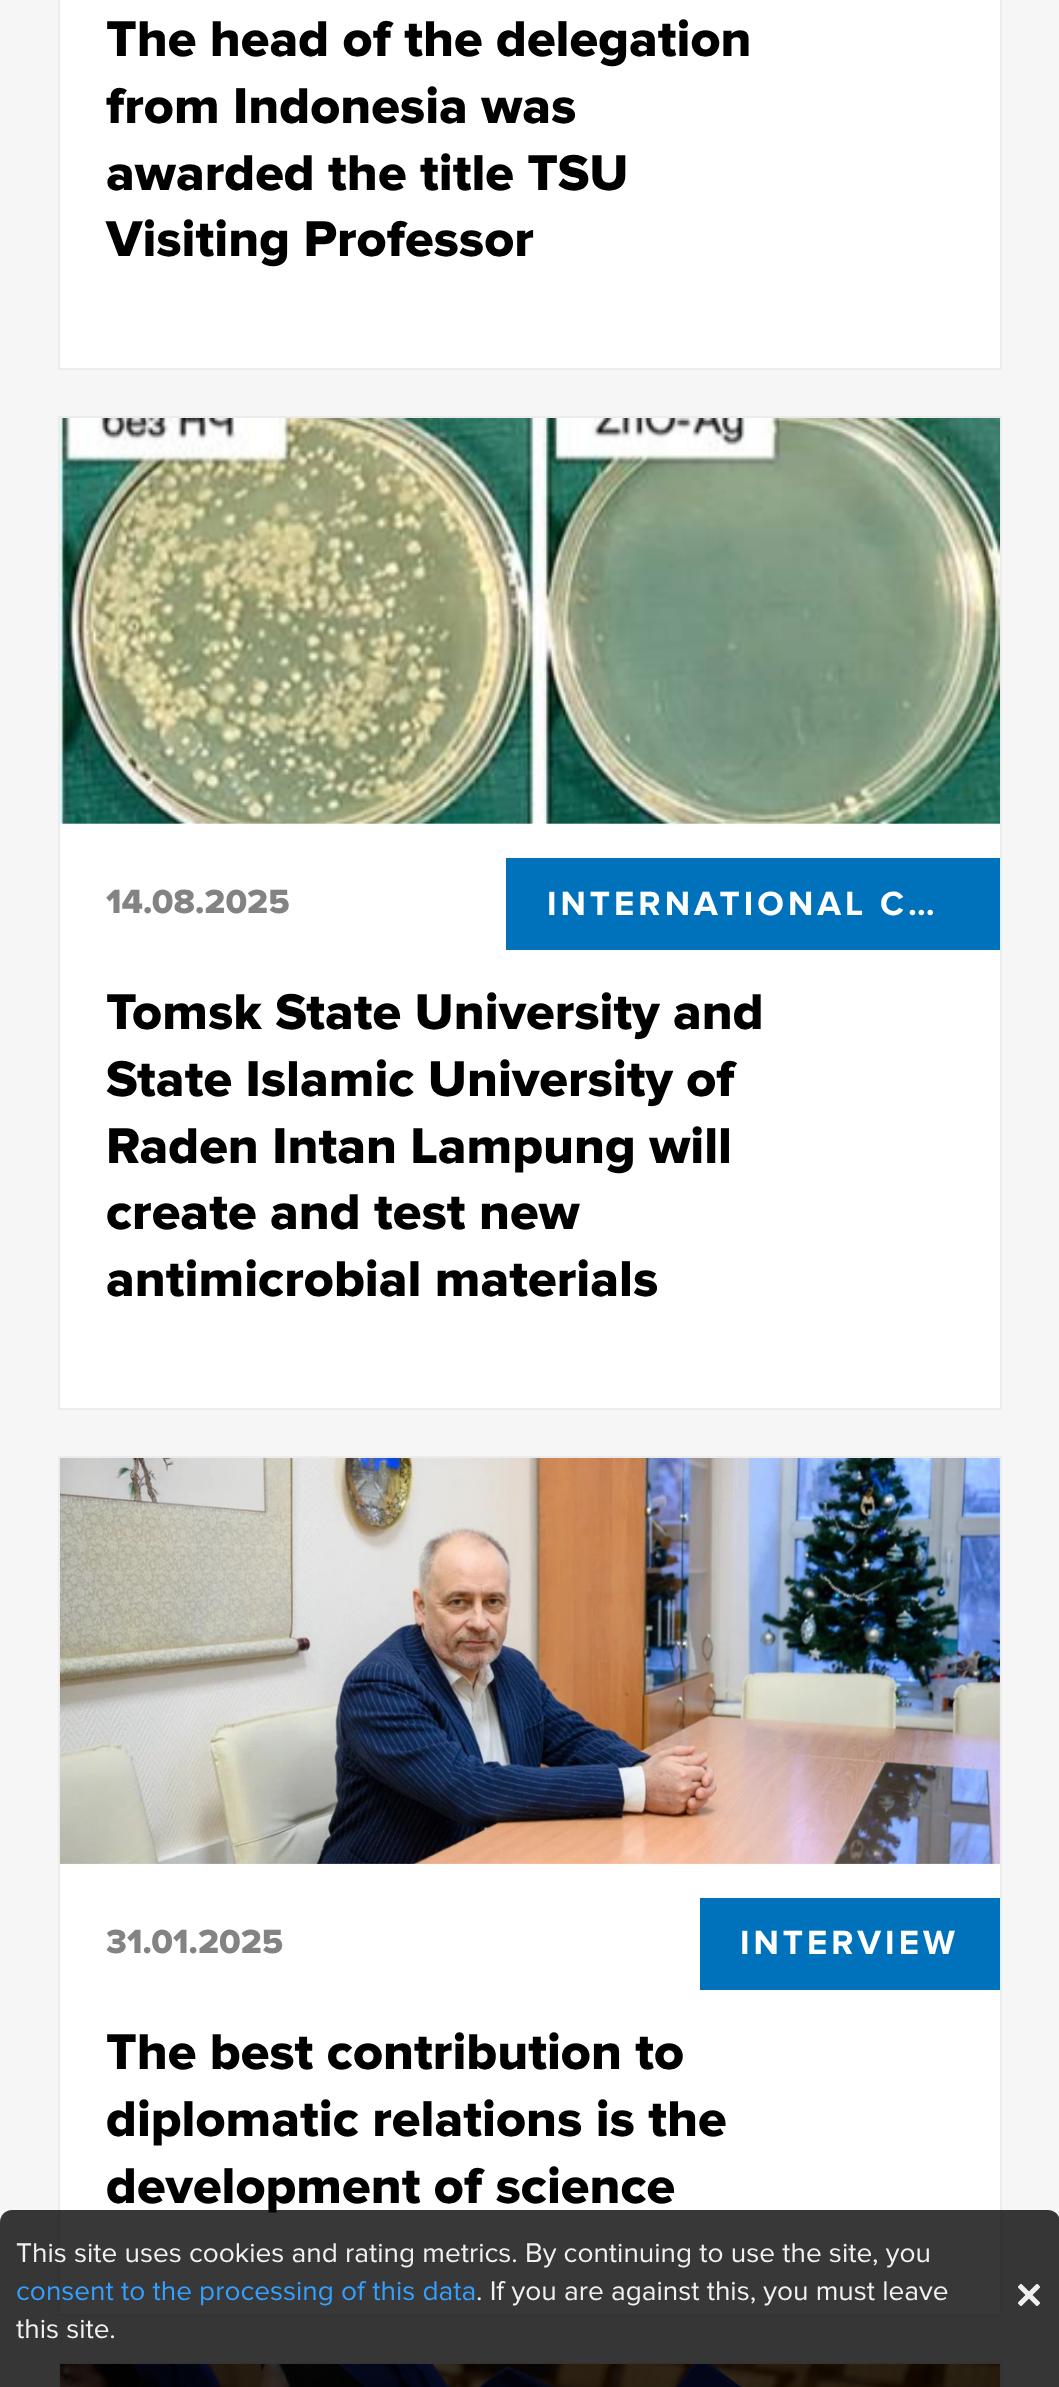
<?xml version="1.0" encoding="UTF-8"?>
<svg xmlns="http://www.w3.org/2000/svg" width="1059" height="2387">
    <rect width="100%" height="100%" fill="#F6F6F6"/>
    <rect x="59" y="-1" width="942" height="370" fill="#FFFFFF" stroke="#ECECEC" stroke-width="2"/>
    <text font-family="Proxima Nova" font-size="52.25" font-weight="800" fill="#000000">
        <tspan x="106" y="56">The head of the delegation</tspan>
        <tspan x="106" y="123">from Indonesia was</tspan>
        <tspan x="106" y="190">awarded the title TSU</tspan>
        <tspan x="106" y="256">Visiting Professor</tspan>
    </text>
    <rect x="60" y="823" width="940" height="585" fill="#FFFFFF"/>
    <rect x="59" y="417" width="942" height="992" fill="none" stroke="#ECECEC" stroke-width="2"/>
    <image x="60" y="418" width="940" height="406" href="img_01.png"/>
    <text x="106" y="913" font-family="Proxima Nova" font-size="34.75" font-weight="800" fill="#838383">14.08.2025</text>
    <rect x="506" y="858" width="494" height="92" fill="#0072BC"/>
    <text x="547" y="915" font-family="Proxima Nova" font-size="34.75" font-weight="700" letter-spacing="4" fill="#FFFFFF">INTERNATIONAL C…</text>
    <text font-family="Proxima Nova" font-size="52.25" font-weight="800" fill="#000000">
        <tspan x="106" y="1029">Tomsk State University and</tspan>
        <tspan x="106" y="1096">State Islamic University of</tspan>
        <tspan x="106" y="1163">Raden Intan Lampung will</tspan>
        <tspan x="106" y="1229">create and test new</tspan>
        <tspan x="106" y="1296">antimicrobial materials</tspan>
    </text>
    <rect x="59" y="1457" width="942" height="858" fill="#FFFFFF" stroke="#ECECEC" stroke-width="2"/>
    <image x="60" y="1458" width="940" height="406" href="img_02.png"/>
    <text x="106" y="1953" font-family="Proxima Nova" font-size="34.75" font-weight="800" fill="#838383">31.01.2025</text>
    <rect x="700" y="1898" width="300" height="92" fill="#0072BC"/>
    <text x="740" y="1954" font-family="Proxima Nova" font-size="34.75" font-weight="700" letter-spacing="4" fill="#FFFFFF">INTERVIEW</text>
    <text font-family="Proxima Nova" font-size="52.25" font-weight="800" fill="#000000">
        <tspan x="106" y="2069">The best contribution to</tspan>
        <tspan x="106" y="2136">diplomatic relations is the</tspan>
        <tspan x="106" y="2203">development of science</tspan>
    </text>
    <rect x="59" y="2363" width="942" height="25" fill="none" stroke="#ECECEC" stroke-width="2"/>
    <image x="60" y="2364" width="940" height="23" href="img_03.png"/>
    <path d="M 12 2210 H 1048 C 1054.5 2210 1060 2215.5 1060 2222 V 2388 H 0 V 2222 C 0 2215.5 5.5 2210 12 2210 Z" fill="#000000" fill-opacity="0.78"/>
    <text x="16" y="2262" font-family="Proxima Nova" font-size="28" fill="#F1F1F1">This site uses cookies and rating metrics. By continuing to use the site, you</text>
    <text x="16" y="2300" font-family="Proxima Nova" font-size="28" fill="#34A0FF">consent to the processing of this data</text>
    <text x="476" y="2300" font-family="Proxima Nova" font-size="28" fill="#F1F1F1">. If you are against this, you must leave</text>
    <text x="16" y="2338" font-family="Proxima Nova" font-size="28" fill="#F1F1F1">this site.</text>
    <image x="1018" y="2284" width="22" height="22" href="img_04.png"/>
</svg>
